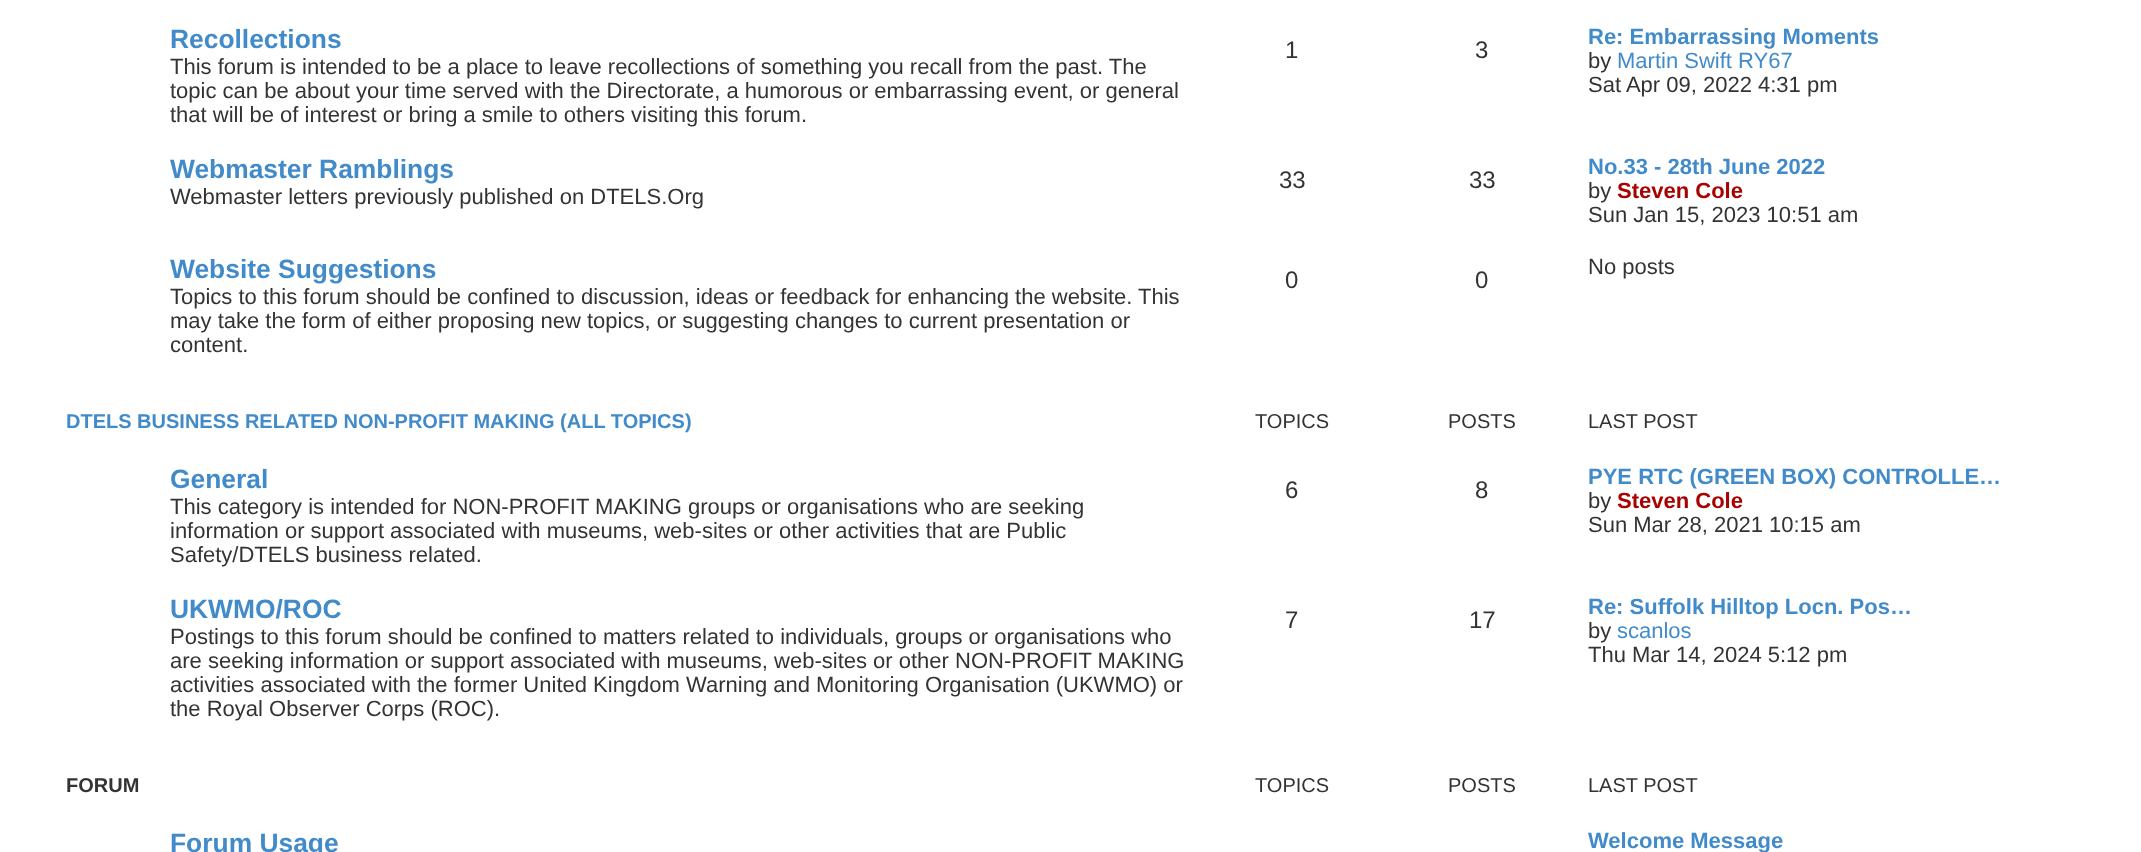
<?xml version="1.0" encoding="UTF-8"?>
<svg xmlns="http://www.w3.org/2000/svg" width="2141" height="852">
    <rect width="100%" height="100%" fill="#FFFFFF"/>
    <text x="170" y="48" font-family="Liberation Sans" font-size="26.4" font-weight="700" fill="#428BCA">Recollections</text>
    <text font-family="Liberation Sans" font-size="22" fill="#333333">
        <tspan x="170" y="74">This forum is intended to be a place to leave recollections of something you recall from the past. The</tspan>
        <tspan x="170" y="98">topic can be about your time served with the Directorate, a humorous or embarrassing event, or general</tspan>
        <tspan x="170" y="122">that will be of interest or bring a smile to others visiting this forum.</tspan>
    </text>
    <text x="1285" y="58" font-family="Liberation Sans" font-size="24" fill="#333333">1</text>
    <text x="1475" y="58" font-family="Liberation Sans" font-size="24" fill="#333333">3</text>
    <text x="1588" y="44" font-family="Liberation Sans" font-size="22" font-weight="700" fill="#428BCA">Re: Embarrassing Moments</text>
    <text x="1588" y="68" font-family="Liberation Sans" font-size="22" fill="#333333">by</text>
    <text x="1617" y="68" font-family="Liberation Sans" font-size="22" fill="#428BCA">Martin Swift RY67</text>
    <text x="1588" y="92" font-family="Liberation Sans" font-size="22" fill="#333333">Sat Apr 09, 2022 4:31 pm</text>
    <text x="170" y="178" font-family="Liberation Sans" font-size="26.4" font-weight="700" fill="#428BCA">Webmaster Ramblings</text>
    <text x="170" y="204" font-family="Liberation Sans" font-size="22" fill="#333333">Webmaster letters previously published on DTELS.Org</text>
    <text x="1279" y="188" font-family="Liberation Sans" font-size="24" fill="#333333">33</text>
    <text x="1469" y="188" font-family="Liberation Sans" font-size="24" fill="#333333">33</text>
    <text x="1588" y="174" font-family="Liberation Sans" font-size="22" font-weight="700" fill="#428BCA">No.33 - 28th June 2022</text>
    <text x="1588" y="198" font-family="Liberation Sans" font-size="22" fill="#333333">by</text>
    <text x="1617" y="198" font-family="Liberation Sans" font-size="22" font-weight="700" fill="#AA0000">Steven Cole</text>
    <text x="1588" y="222" font-family="Liberation Sans" font-size="22" fill="#333333">Sun Jan 15, 2023 10:51 am</text>
    <text x="170" y="278" font-family="Liberation Sans" font-size="26.4" font-weight="700" fill="#428BCA">Website Suggestions</text>
    <text x="170" y="304" font-family="Liberation Sans" font-size="22" fill="#333333">Topics to this forum should be confined to discussion, ideas or feedback for enhancing the website.</text>
    <text x="1138" y="304" font-family="Liberation Sans" font-size="22" fill="#333333">This</text>
    <text font-family="Liberation Sans" font-size="22" fill="#333333">
        <tspan x="170" y="328">may take the form of either proposing new topics, or suggesting changes to current presentation or</tspan>
        <tspan x="170" y="352">content.</tspan>
    </text>
    <text x="1285" y="288" font-family="Liberation Sans" font-size="24" fill="#333333">0</text>
    <text x="1475" y="288" font-family="Liberation Sans" font-size="24" fill="#333333">0</text>
    <text x="1588" y="274" font-family="Liberation Sans" font-size="22" fill="#333333">No posts</text>
    <text x="66" y="428" font-family="Liberation Sans" font-size="20" font-weight="700" fill="#428BCA">DTELS BUSINESS RELATED NON-PROFIT MAKING (ALL TOPICS)</text>
    <text x="1255" y="428" font-family="Liberation Sans" font-size="20" fill="#333333">TOPICS</text>
    <text x="1448" y="428" font-family="Liberation Sans" font-size="20" fill="#333333">POSTS</text>
    <text x="1588" y="428" font-family="Liberation Sans" font-size="20" fill="#333333">LAST POST</text>
    <text x="170" y="488" font-family="Liberation Sans" font-size="26.4" font-weight="700" fill="#428BCA">General</text>
    <text font-family="Liberation Sans" font-size="22" fill="#333333">
        <tspan x="170" y="514">This category is intended for NON-PROFIT MAKING groups or organisations who are seeking</tspan>
        <tspan x="170" y="538">information or support associated with museums, web-sites or other activities that are Public</tspan>
        <tspan x="170" y="562">Safety/DTELS business related.</tspan>
    </text>
    <text x="1285" y="498" font-family="Liberation Sans" font-size="24" fill="#333333">6</text>
    <text x="1475" y="498" font-family="Liberation Sans" font-size="24" fill="#333333">8</text>
    <text x="1588" y="484" font-family="Liberation Sans" font-size="22" font-weight="700" fill="#428BCA">PYE RTC (GREEN BOX) CONTROLLE…</text>
    <text x="1588" y="508" font-family="Liberation Sans" font-size="22" fill="#333333">by</text>
    <text x="1617" y="508" font-family="Liberation Sans" font-size="22" font-weight="700" fill="#AA0000">Steven Cole</text>
    <text x="1588" y="532" font-family="Liberation Sans" font-size="22" fill="#333333">Sun Mar 28, 2021 10:15 am</text>
    <text x="170" y="618" font-family="Liberation Sans" font-size="26.4" font-weight="700" fill="#428BCA">UKWMO/ROC</text>
    <text font-family="Liberation Sans" font-size="22" fill="#333333">
        <tspan x="170" y="644">Postings to this forum should be confined to matters related to individuals, groups or organisations who</tspan>
        <tspan x="170" y="668">are seeking information or support associated with museums, web-sites or other NON-PROFIT MAKING</tspan>
        <tspan x="170" y="692">activities associated with the former United Kingdom Warning and Monitoring Organisation (UKWMO) or</tspan>
        <tspan x="170" y="716">the Royal Observer Corps (ROC).</tspan>
    </text>
    <text x="1285" y="628" font-family="Liberation Sans" font-size="24" fill="#333333">7</text>
    <text x="1469" y="628" font-family="Liberation Sans" font-size="24" fill="#333333">17</text>
    <text x="1588" y="614" font-family="Liberation Sans" font-size="22" font-weight="700" fill="#428BCA">Re: Suffolk Hilltop Locn. Pos…</text>
    <text x="1588" y="638" font-family="Liberation Sans" font-size="22" fill="#333333">by</text>
    <text x="1617" y="638" font-family="Liberation Sans" font-size="22" fill="#428BCA">scanlos</text>
    <text x="1588" y="662" font-family="Liberation Sans" font-size="22" fill="#333333">Thu Mar 14, 2024 5:12 pm</text>
    <text x="66" y="792" font-family="Liberation Sans" font-size="20" font-weight="700" fill="#333333">FORUM</text>
    <text x="1255" y="792" font-family="Liberation Sans" font-size="20" fill="#333333">TOPICS</text>
    <text x="1448" y="792" font-family="Liberation Sans" font-size="20" fill="#333333">POSTS</text>
    <text x="1588" y="792" font-family="Liberation Sans" font-size="20" fill="#333333">LAST POST</text>
    <text x="170" y="852" font-family="Liberation Sans" font-size="26.4" font-weight="700" fill="#428BCA">Forum Usage</text>
    <text x="1588" y="848" font-family="Liberation Sans" font-size="22" font-weight="700" fill="#428BCA">Welcome Message</text>
</svg>
